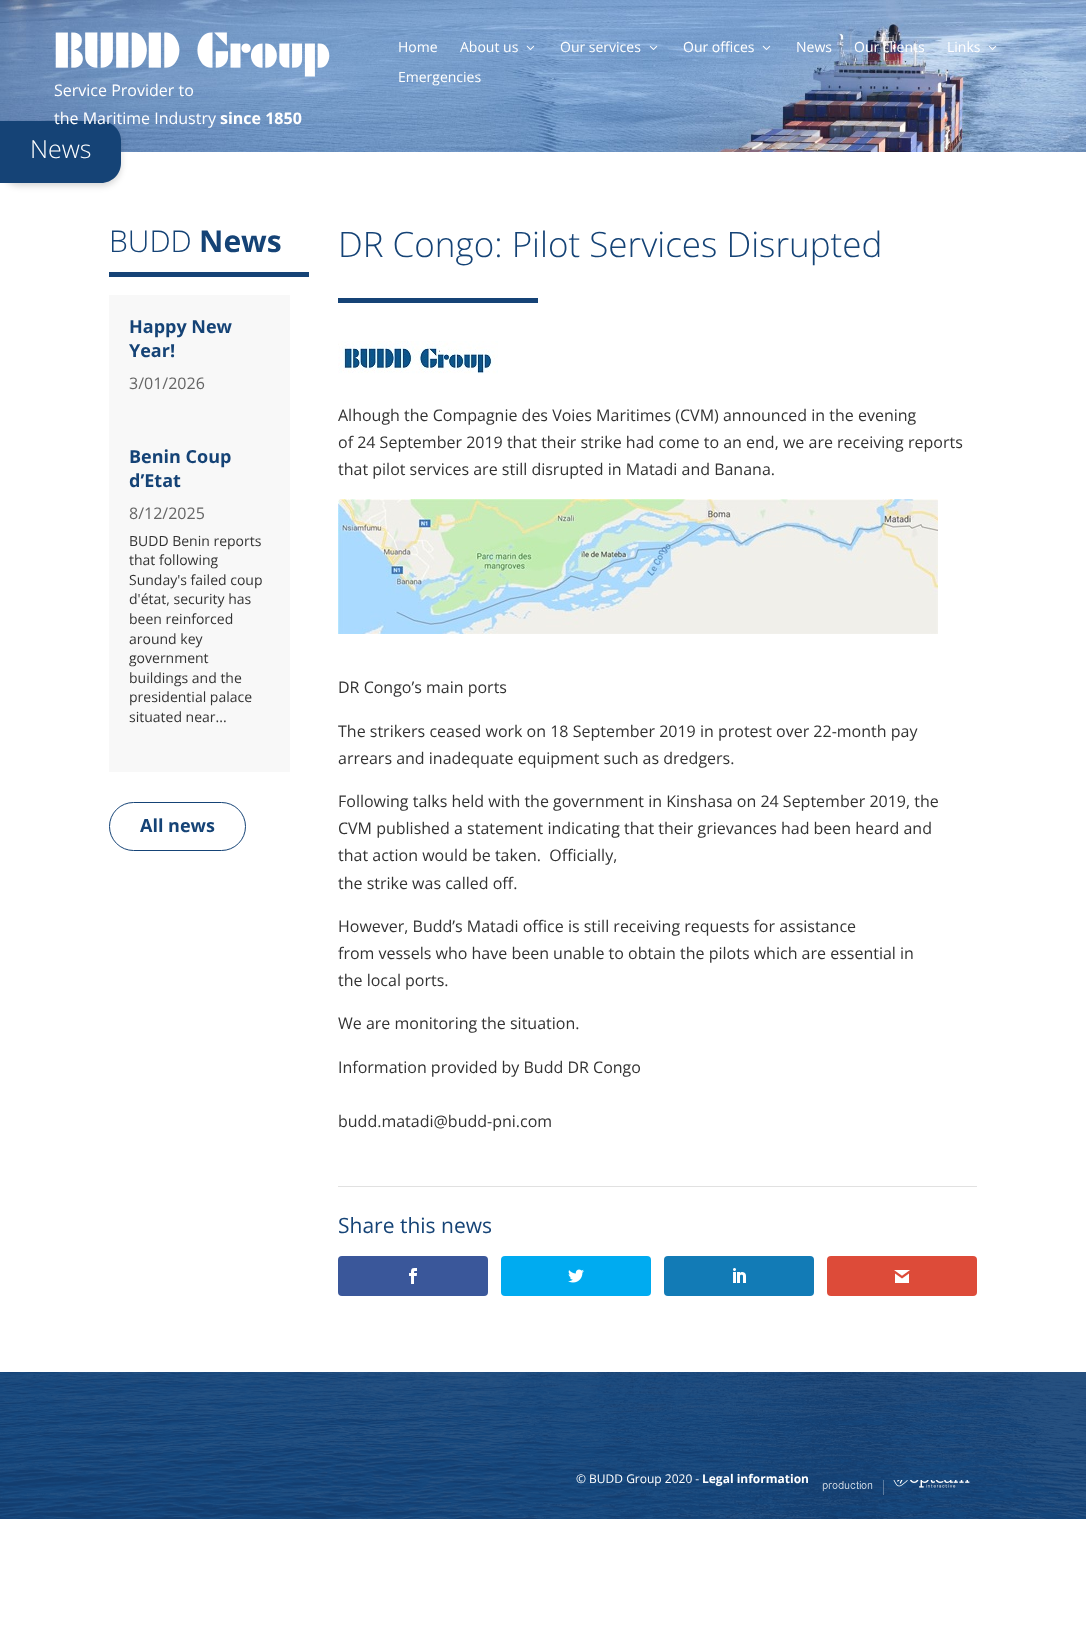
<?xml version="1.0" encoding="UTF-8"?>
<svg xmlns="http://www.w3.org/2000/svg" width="1086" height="1636">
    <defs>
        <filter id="blur1" x="-50%" y="-200%" width="200%" height="500%"><feGaussianBlur stdDeviation="3"/></filter>
    </defs>
    <rect width="100%" height="100%" fill="#FFFFFF"/>
    <image x="0" y="0" width="1086" height="152" href="img_06.png"/>
    <text x="398" y="52" font-family="Open Sans" font-size="14" fill="#FFFFFF">Home</text>
    <text x="460" y="52" font-family="Open Sans" font-size="14" fill="#FFFFFF">About us</text>
    <image x="526" y="45" width="9" height="5" href="img_01.png"/>
    <text x="560" y="52" font-family="Open Sans" font-size="14" fill="#FFFFFF">Our services</text>
    <image x="649" y="45" width="9" height="5" href="img_02.png"/>
    <text x="683" y="52" font-family="Open Sans" font-size="14" fill="#FFFFFF">Our offices</text>
    <image x="762" y="45" width="9" height="5" href="img_03.png"/>
    <text x="796" y="52" font-family="Open Sans" font-size="14" fill="#FFFFFF">News</text>
    <text x="854" y="52" font-family="Open Sans" font-size="14" fill="#FFFFFF">Our clients</text>
    <text x="947" y="52" font-family="Open Sans" font-size="14" fill="#FFFFFF">Links</text>
    <image x="988" y="45" width="9" height="5" href="img_04.png"/>
    <text x="398" y="82" font-family="Open Sans" font-size="14" fill="#FFFFFF">Emergencies</text>
    <image x="55" y="32" width="275" height="45" href="img_05.png"/>
    <text x="54" y="96" font-family="Open Sans" font-size="16" fill="#FFFFFF">Service Provider to</text>
    <rect x="0" y="124" width="121" height="62" rx="20" fill="#000000" fill-opacity="0.16" filter="url(#blur1)"/>
    <path d="M 0 121 H 101 C 112 121 121 130 121 141 V 163 C 121 174 112 183 101 183 H 0 Z" fill="#154376"/>
    <text x="54" y="124" font-family="Open Sans" font-size="16" fill="#FFFFFF">the Maritime Industry</text>
    <text x="220" y="124" font-family="Open Sans" font-size="16" font-weight="700" fill="#FFFFFF">since 1850</text>
    <text x="30" y="158" font-family="Open Sans" font-size="25" font-weight="300" fill="#FFFFFF">News</text>
    <text x="109" y="252" font-family="Open Sans" font-size="30" font-weight="300" fill="#154376">BUDD</text>
    <text x="199" y="252" font-family="Open Sans" font-size="30" font-weight="700" fill="#154376">News</text>
    <rect x="109" y="272" width="200" height="5" fill="#154376"/>
    <rect x="109" y="295" width="181" height="477" fill="#F8F8F8"/>
    <text font-family="Open Sans" font-size="18" font-weight="700" fill="#154376">
        <tspan x="129" y="333">Happy New</tspan>
        <tspan x="129" y="357">Year!</tspan>
    </text>
    <text x="129" y="389" font-family="Open Sans" font-size="16" fill="#666666">3/01/2026</text>
    <text font-family="Open Sans" font-size="18" font-weight="700" fill="#154376">
        <tspan x="129" y="463">Benin Coup</tspan>
        <tspan x="129" y="487">d’Etat</tspan>
    </text>
    <text x="129" y="519" font-family="Open Sans" font-size="16" fill="#666666">8/12/2025</text>
    <text font-family="Open Sans" font-size="14" fill="#333333">
        <tspan x="129" y="546">BUDD Benin reports</tspan>
        <tspan x="129" y="565">that following</tspan>
        <tspan x="129" y="585">Sunday's failed coup</tspan>
        <tspan x="129" y="604">d'état, security has</tspan>
        <tspan x="129" y="624">been reinforced</tspan>
        <tspan x="129" y="644">around key</tspan>
        <tspan x="129" y="663">government</tspan>
        <tspan x="129" y="683">buildings and the</tspan>
        <tspan x="129" y="702">presidential palace</tspan>
        <tspan x="129" y="722">situated near...</tspan>
    </text>
    <rect x="109.5" y="802.5" width="136" height="48" rx="24" fill="none" stroke="#154376"/>
    <text x="140" y="832" font-family="Open Sans" font-size="18" font-weight="700" fill="#154376">All news</text>
    <text x="338" y="257" font-family="Open Sans" font-size="35" font-weight="300" fill="#154376">DR Congo: Pilot Services Disrupted</text>
    <rect x="338" y="298" width="200" height="5" fill="#154376"/>
    <image x="338" y="341" width="160" height="33" href="img_07.png"/>
    <text font-family="Open Sans" font-size="16" fill="#333333">
        <tspan x="338" y="421">Alhough the Compagnie des Voies Maritimes (CVM) announced in the evening</tspan>
        <tspan x="338" y="448">of 24 September 2019 that their strike had come to an end, we are receiving reports</tspan>
        <tspan x="338" y="475">that pilot services are still disrupted in Matadi and Banana.</tspan>
    </text>
    <image x="338" y="499" width="600" height="135" href="img_08.png"/>
    <text x="338" y="693" font-family="Open Sans" font-size="16" fill="#333333">DR Congo’s main ports</text>
    <text font-family="Open Sans" font-size="16" fill="#333333">
        <tspan x="338" y="737">The strikers ceased work on 18 September 2019 in protest over 22-month pay</tspan>
        <tspan x="338" y="764">arrears and inadequate equipment such as dredgers.</tspan>
    </text>
    <text font-family="Open Sans" font-size="16" fill="#333333" xml:space="preserve"><tspan x="338" y="807">Following talks held with the government in Kinshasa on 24 September 2019, the</tspan><tspan x="338" y="834">CVM published a statement indicating that their grievances had been heard and</tspan><tspan x="338" y="861">that action would be taken.  Officially,</tspan><tspan x="338" y="889">the strike was called off.</tspan></text>
    <text font-family="Open Sans" font-size="16" fill="#333333">
        <tspan x="338" y="932">However, Budd’s Matadi office is still receiving requests for assistance</tspan>
        <tspan x="338" y="959">from vessels who have been unable to obtain the pilots which are essential in</tspan>
        <tspan x="338" y="986">the local ports.</tspan>
    </text>
    <text x="338" y="1029" font-family="Open Sans" font-size="16" fill="#333333">We are monitoring the situation.</text>
    <text x="338" y="1073" font-family="Open Sans" font-size="16" fill="#333333">Information provided by Budd DR Congo</text>
    <text x="338" y="1127" font-family="Open Sans" font-size="16" fill="#333333">budd.matadi@budd-pni.com</text>
    <rect x="338" y="1186" width="639" height="1" fill="#E1E1E1"/>
    <text x="338" y="1233" font-family="Open Sans" font-size="21" fill="#154376">Share this news</text>
    <rect x="338" y="1256" width="150" height="40" rx="4" fill="#3A579A"/>
    <image x="409" y="1268" width="8" height="16" href="img_09.png"/>
    <rect x="501" y="1256" width="150" height="40" rx="4" fill="#00ABF0"/>
    <image x="568" y="1269" width="16" height="14" href="img_10.png"/>
    <rect x="664" y="1256" width="150" height="40" rx="4" fill="#127BB6"/>
    <image x="733" y="1268" width="13" height="15" href="img_11.png"/>
    <rect x="827" y="1256" width="150" height="40" rx="4" fill="#DD4B39"/>
    <image x="894" y="1270" width="16" height="13" href="img_12.png"/>
    <image x="0" y="1372" width="1086" height="147" href="img_13.png"/>
    <text x="576" y="1483" font-family="Open Sans" font-size="12" fill="#FFFFFF">© BUDD Group 2020 -</text>
    <text x="702" y="1483" font-family="Open Sans" font-size="12" font-weight="700" fill="#FFFFFF">Legal information</text>
    <image x="822" y="1480" width="148" height="15" href="img_14.png"/>
</svg>
